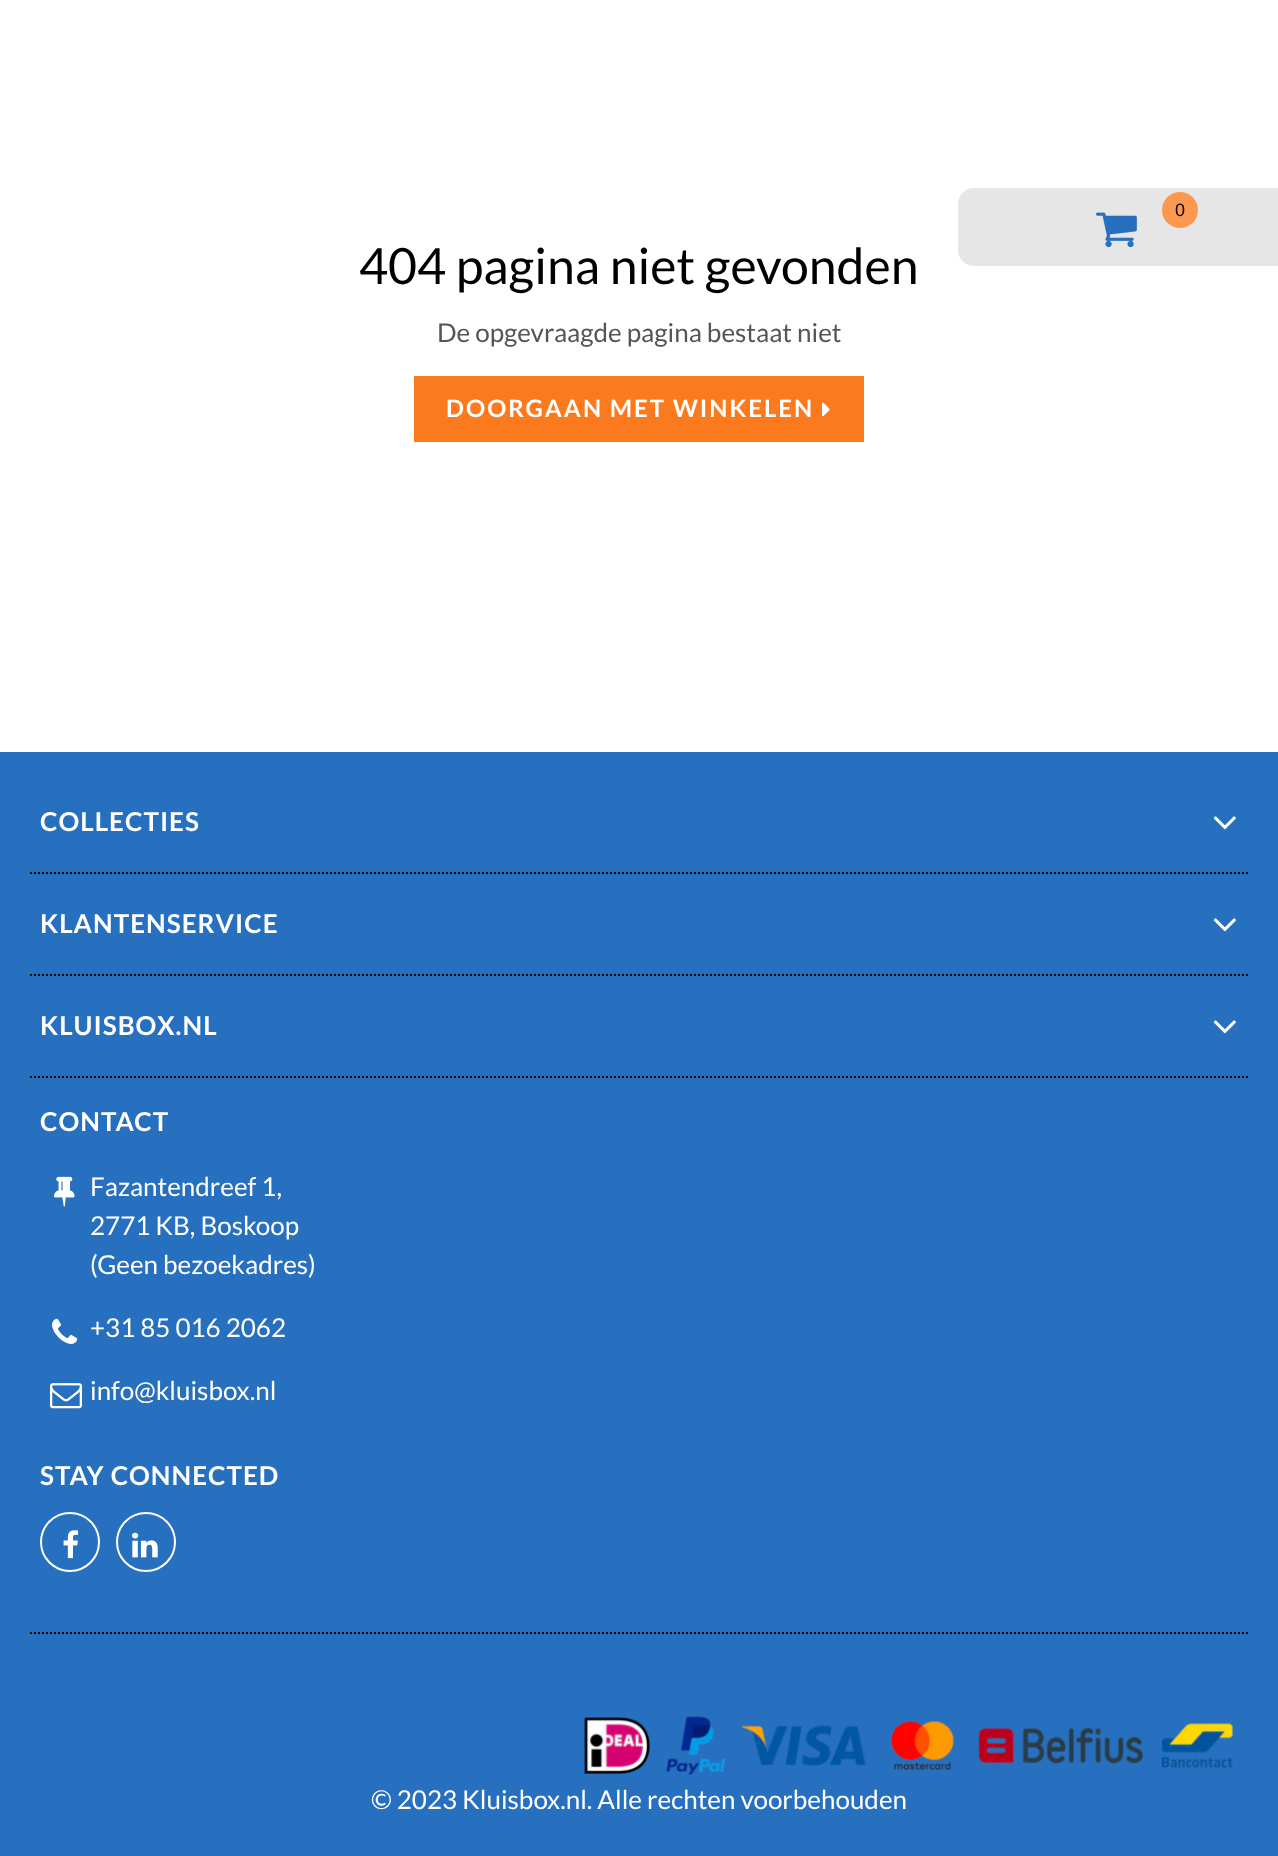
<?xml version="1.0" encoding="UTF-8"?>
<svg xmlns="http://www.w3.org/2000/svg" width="1278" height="1856">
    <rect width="100%" height="100%" fill="#FFFFFF"/>
    <path d="M 974 188 H 1278 V 266 H 974 C 965 266 958 259 958 250 V 204 C 958 195 965 188 974 188 Z" fill="#E6E6E6"/>
    <circle cx="1180" cy="210" r="18" fill="#FD9850"/>
    <text x="1175" y="216" font-family="Liberation Sans" font-size="18" letter-spacing="2" fill="#000000">0</text>
    <image x="1096" y="212" width="41" height="36" href="img_01.png"/>
    <text x="359" y="284" font-family="Lato" font-size="50" fill="#000000">404 pagina niet gevonden</text>
    <text x="437" y="342" font-family="Lato" font-size="26" fill="#555555">De opgevraagde pagina bestaat niet</text>
    <rect x="414" y="376" width="450" height="66" fill="#FC7A1E"/>
    <text x="446" y="417" font-family="Lato" font-size="24" font-weight="700" letter-spacing="2" fill="#FFFFFF">DOORGAAN MET WINKELEN</text>
    <image x="822" y="402" width="8" height="15" href="img_02.png"/>
    <rect x="0" y="752" width="1278" height="1104" fill="#276FBF"/>
    <path d="M 30 873 H 1248" fill="none" stroke="#000000" stroke-width="2" stroke-dasharray="2 2"/>
    <text x="40" y="831" font-family="Lato" font-size="26" font-weight="700" letter-spacing="1" fill="#FFFFFF">COLLECTIES</text>
    <image x="1213" y="816" width="23" height="14" href="img_03.png"/>
    <path d="M 30 975 H 1248" fill="none" stroke="#000000" stroke-width="2" stroke-dasharray="2 2"/>
    <text x="40" y="933" font-family="Lato" font-size="26" font-weight="700" letter-spacing="1" fill="#FFFFFF">KLANTENSERVICE</text>
    <image x="1213" y="918" width="23" height="14" href="img_03.png"/>
    <path d="M 30 1077 H 1248" fill="none" stroke="#000000" stroke-width="2" stroke-dasharray="2 2"/>
    <text x="40" y="1035" font-family="Lato" font-size="26" font-weight="700" letter-spacing="1" fill="#FFFFFF">KLUISBOX.NL</text>
    <image x="1213" y="1020" width="23" height="14" href="img_03.png"/>
    <text x="40" y="1131" font-family="Lato" font-size="26" font-weight="700" letter-spacing="1" fill="#FFFFFF">CONTACT</text>
    <image x="54" y="1176" width="21" height="31" href="img_04.png"/>
    <text font-family="Lato" font-size="26" fill="#FFFFFF">
        <tspan x="90" y="1196">Fazantendreef 1,</tspan>
        <tspan x="90" y="1235">2771 KB, Boskoop</tspan>
        <tspan x="90" y="1274">(Geen bezoekadres)</tspan>
    </text>
    <image x="52" y="1318" width="26" height="26" href="img_05.png"/>
    <text x="90" y="1337" font-family="Lato" font-size="26" fill="#FFFFFF">+31 85 016 2062</text>
    <image x="50" y="1383" width="32" height="26" href="img_06.png"/>
    <text x="90" y="1400" font-family="Lato" font-size="26" fill="#FFFFFF">info@kluisbox.nl</text>
    <text x="40" y="1485" font-family="Lato" font-size="26" font-weight="700" letter-spacing="1" fill="#FFFFFF">STAY CONNECTED</text>
    <circle cx="70" cy="1542" r="29" fill="none" stroke="#FFFFFF" stroke-width="2"/>
    <image x="63" y="1530" width="16" height="29" href="img_07.png"/>
    <circle cx="146" cy="1542" r="29" fill="none" stroke="#FFFFFF" stroke-width="2"/>
    <image x="132" y="1532" width="26" height="26" href="img_08.png"/>
    <path d="M 30 1633 H 1248" fill="none" stroke="#000000" stroke-width="2" stroke-dasharray="2 2"/>
    <image x="584" y="1716" width="649" height="59" href="img_09.png"/>
    <text x="371" y="1809" font-family="Lato" font-size="26" fill="#FFFFFF">© 2023 Kluisbox.nl. Alle rechten voorbehouden</text>
</svg>
